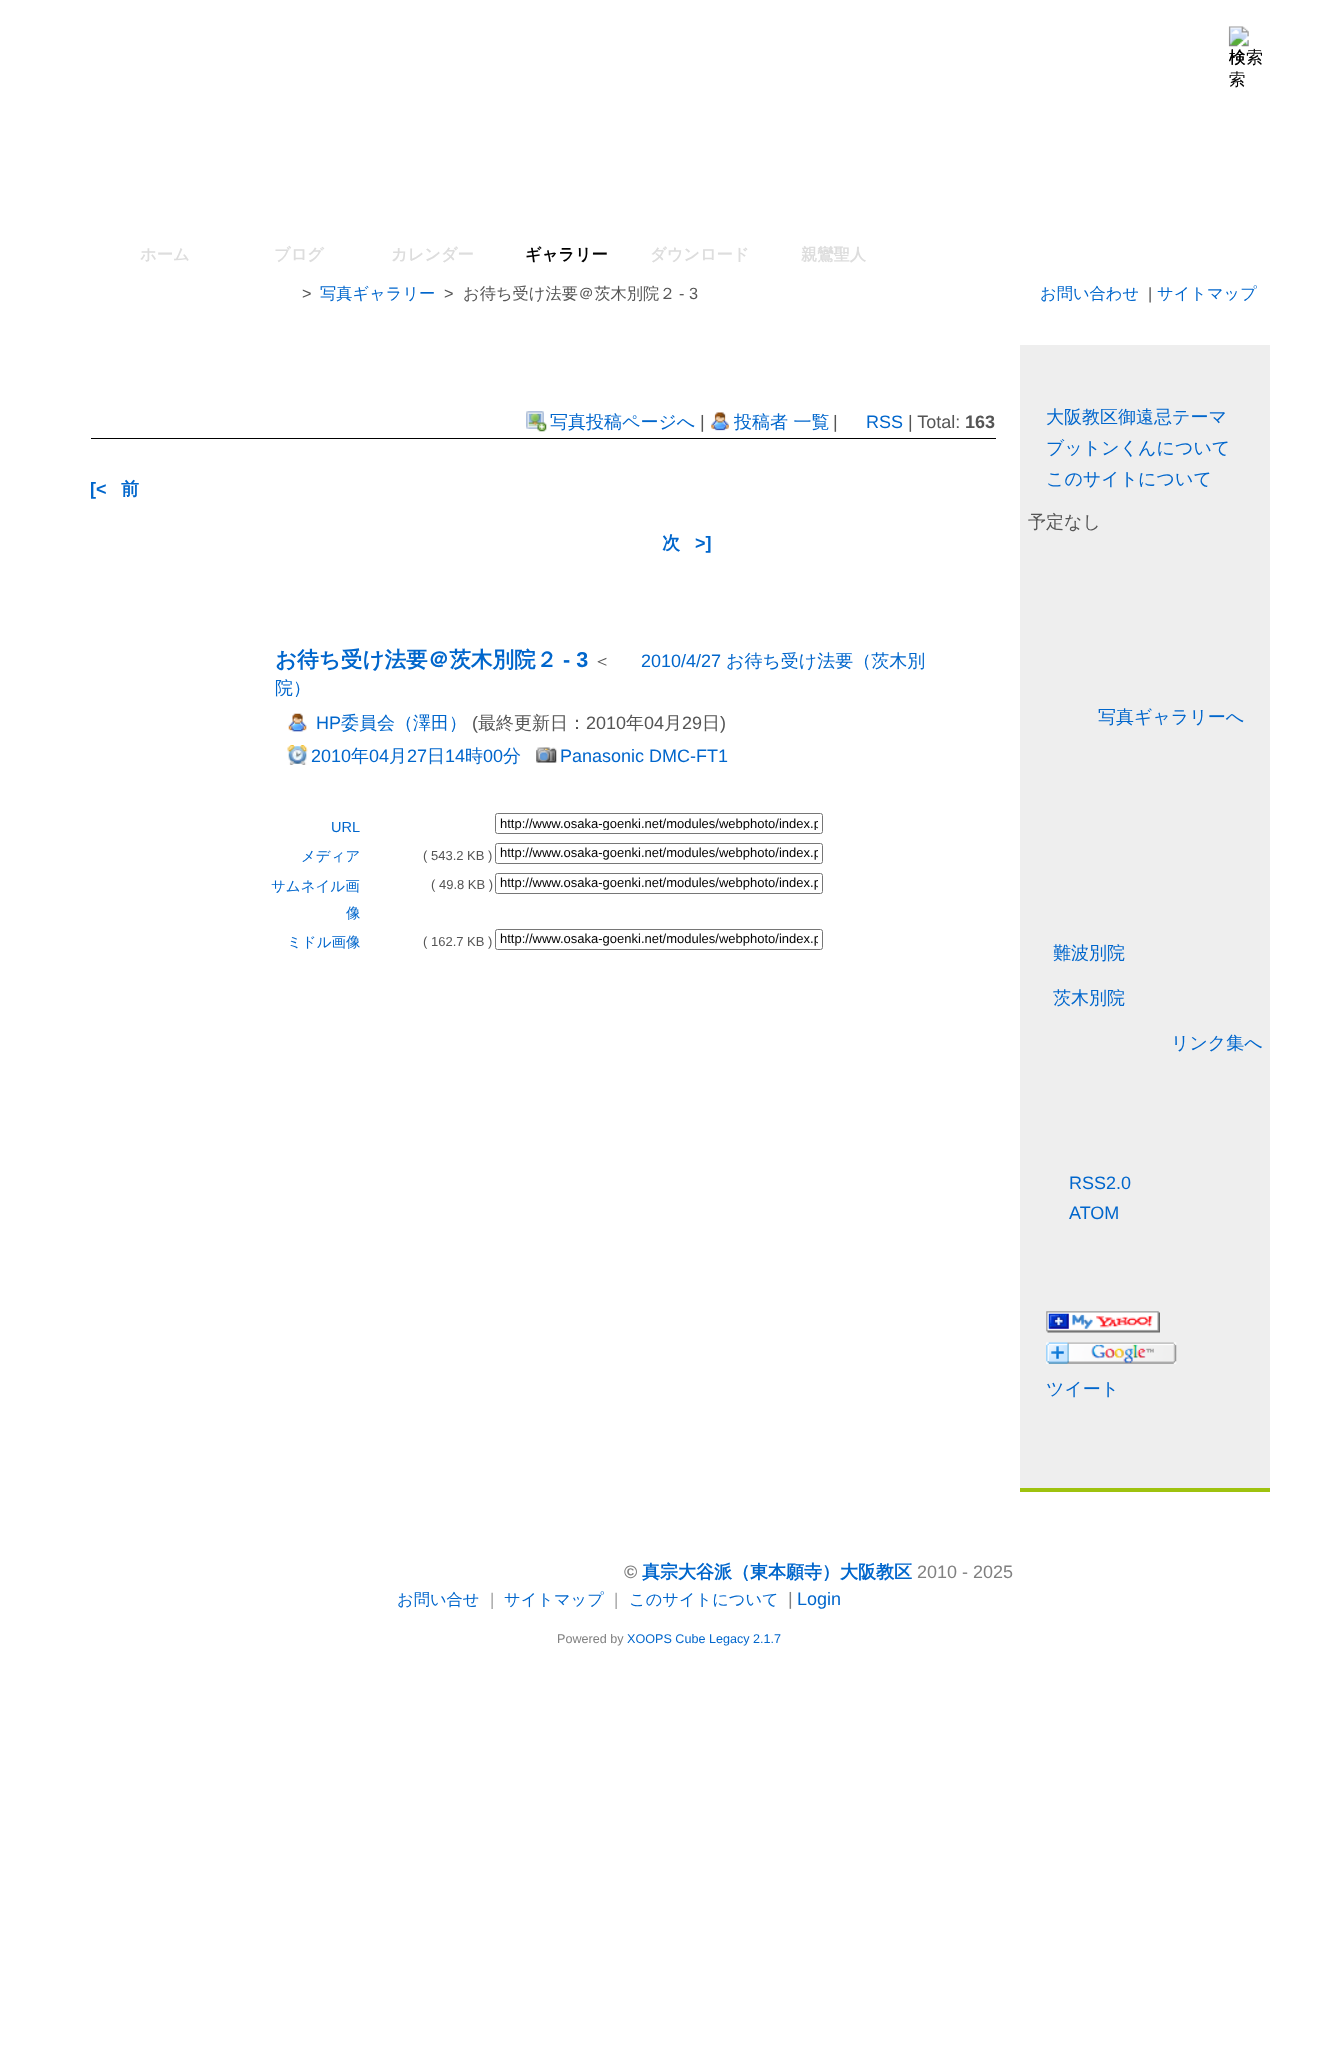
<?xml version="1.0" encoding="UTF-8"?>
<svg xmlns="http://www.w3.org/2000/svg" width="1337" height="2057">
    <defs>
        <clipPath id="clip1"><rect x="500" y="816" width="318" height="14"/></clipPath>
        <clipPath id="clip2"><rect x="500" y="846" width="318" height="14"/></clipPath>
        <clipPath id="clip3"><rect x="500" y="876" width="318" height="14"/></clipPath>
        <clipPath id="clip4"><rect x="500" y="933" width="318" height="13"/></clipPath>
    </defs>
    <rect width="100%" height="100%" fill="#FFFFFF"/>
    <image x="1228" y="26" width="21" height="62" href="img_01.png"/>
    <text x="1229" y="63" font-family="WenQuanYi Zen Hei" font-size="17" font-weight="500" fill="#000000">検索</text>
    <text x="140" y="260" font-family="WenQuanYi Zen Hei" font-size="16.25" font-weight="700" fill="#DDDDDD">ホーム</text>
    <text x="274" y="260" font-family="WenQuanYi Zen Hei" font-size="16.25" font-weight="700" fill="#DDDDDD">ブログ</text>
    <text x="391" y="260" font-family="WenQuanYi Zen Hei" font-size="16.25" font-weight="700" fill="#DDDDDD">カレンダー</text>
    <text x="525" y="260" font-family="WenQuanYi Zen Hei" font-size="16.25" font-weight="700" fill="#000000">ギャラリー</text>
    <text x="650" y="260" font-family="WenQuanYi Zen Hei" font-size="16.25" font-weight="700" fill="#DDDDDD">ダウンロード</text>
    <text x="801" y="260" font-family="WenQuanYi Zen Hei" font-size="16.25" font-weight="700" fill="#DDDDDD">親鸞聖人</text>
    <text x="302" y="299" font-family="Liberation Sans" font-size="16.25" fill="#555555">&gt;</text>
    <text x="320" y="299" font-family="WenQuanYi Zen Hei" font-size="16.25" font-weight="500" fill="#0066CC">写真ギャラリー</text>
    <text x="444" y="299" font-family="Liberation Sans" font-size="16.25" fill="#555555">&gt;</text>
    <text x="463" y="299" font-family="WenQuanYi Zen Hei" font-size="16.25" font-weight="500" fill="#555555">お待ち受け法要＠茨木別院２</text>
    <text x="679" y="299" font-family="Liberation Sans" font-size="16.25" fill="#555555">- 3</text>
    <text x="1040" y="299" font-family="WenQuanYi Zen Hei" font-size="16.25" font-weight="500" fill="#0066CC">お問い合わせ</text>
    <text x="1148" y="299" font-family="Liberation Sans" font-size="16.25" fill="#555555">|</text>
    <text x="1157" y="299" font-family="WenQuanYi Zen Hei" font-size="16.25" font-weight="500" fill="#0066CC">サイトマップ</text>
    <rect x="91" y="438" width="905" height="1" fill="#000000"/>
    <image x="526" y="411" width="21" height="21" href="img_02.png"/>
    <text x="550" y="428" font-family="WenQuanYi Zen Hei" font-size="18" font-weight="500" fill="#0066CC">写真投稿ページへ</text>
    <text x="700" y="428" font-family="Liberation Sans" font-size="18" fill="#555555">|</text>
    <image x="711" y="412" width="18" height="19" href="img_03.png"/>
    <text x="734" y="428" font-family="WenQuanYi Zen Hei" font-size="18" font-weight="500" fill="#0066CC">投稿者 一覧</text>
    <text x="833" y="428" font-family="Liberation Sans" font-size="18" fill="#555555">|</text>
    <text x="866" y="428" font-family="Liberation Sans" font-size="18" fill="#0066CC">RSS</text>
    <text x="908" y="428" font-family="Liberation Sans" font-size="18" fill="#555555">| Total:</text>
    <text x="965" y="428" font-family="Liberation Sans" font-size="18" font-weight="700" fill="#555555">163</text>
    <text x="90" y="495" font-family="Liberation Sans" font-size="18" font-weight="700" fill="#0066CC">[&lt;</text>
    <text x="121" y="495" font-family="WenQuanYi Zen Hei" font-size="18" font-weight="700" fill="#0066CC">前</text>
    <text x="662" y="549" font-family="WenQuanYi Zen Hei" font-size="18" font-weight="700" fill="#0066CC">次</text>
    <text x="695" y="549" font-family="Liberation Sans" font-size="18" font-weight="700" fill="#0066CC">&gt;]</text>
    <text x="275" y="667" font-family="WenQuanYi Zen Hei" font-size="21.6" font-weight="700" fill="#0066CC">お待ち受け法要＠茨木別院２</text>
    <text x="563" y="667" font-family="Liberation Sans" font-size="21.6" font-weight="700" fill="#0066CC">- 3</text>
    <text x="593" y="667" font-family="WenQuanYi Zen Hei" font-size="18" font-weight="500" fill="#555555">＜</text>
    <text x="641" y="667" font-family="Liberation Sans" font-size="18" fill="#0066CC">2010/4/27</text>
    <text x="726" y="667" font-family="WenQuanYi Zen Hei" font-size="18" font-weight="500" fill="#0066CC">お待ち受け法要（茨木別</text>
    <text x="275" y="694" font-family="WenQuanYi Zen Hei" font-size="18" font-weight="500" fill="#0066CC">院）</text>
    <image x="288" y="713" width="19" height="19" href="img_04.png"/>
    <text x="316" y="729" font-family="Liberation Sans" font-size="18" fill="#0066CC">HP</text>
    <text x="341" y="729" font-family="WenQuanYi Zen Hei" font-size="18" font-weight="500" fill="#0066CC">委員会（澤田）</text>
    <text x="472" y="729" font-family="Liberation Sans" font-size="18" fill="#555555">(</text>
    <text x="478" y="729" font-family="WenQuanYi Zen Hei" font-size="18" font-weight="500" fill="#555555">最終更新日：</text>
    <text x="586" y="729" font-family="Liberation Sans" font-size="18" fill="#555555">2010</text>
    <text x="626" y="729" font-family="WenQuanYi Zen Hei" font-size="18" font-weight="500" fill="#555555">年</text>
    <text x="644" y="729" font-family="Liberation Sans" font-size="18" fill="#555555">04</text>
    <text x="664" y="729" font-family="WenQuanYi Zen Hei" font-size="18" font-weight="500" fill="#555555">月</text>
    <text x="682" y="729" font-family="Liberation Sans" font-size="18" fill="#555555">29</text>
    <text x="702" y="729" font-family="WenQuanYi Zen Hei" font-size="18" font-weight="500" fill="#555555">日</text>
    <text x="720" y="729" font-family="Liberation Sans" font-size="18" fill="#555555">)</text>
    <image x="287" y="745" width="21" height="20" href="img_05.png"/>
    <text x="311" y="762" font-family="Liberation Sans" font-size="18" fill="#0066CC">2010</text>
    <text x="351" y="762" font-family="WenQuanYi Zen Hei" font-size="18" font-weight="500" fill="#0066CC">年</text>
    <text x="369" y="762" font-family="Liberation Sans" font-size="18" fill="#0066CC">04</text>
    <text x="389" y="762" font-family="WenQuanYi Zen Hei" font-size="18" font-weight="500" fill="#0066CC">月</text>
    <text x="407" y="762" font-family="Liberation Sans" font-size="18" fill="#0066CC">27</text>
    <text x="427" y="762" font-family="WenQuanYi Zen Hei" font-size="18" font-weight="500" fill="#0066CC">日</text>
    <text x="445" y="762" font-family="Liberation Sans" font-size="18" fill="#0066CC">14</text>
    <text x="465" y="762" font-family="WenQuanYi Zen Hei" font-size="18" font-weight="500" fill="#0066CC">時</text>
    <text x="483" y="762" font-family="Liberation Sans" font-size="18" fill="#0066CC">00</text>
    <text x="503" y="762" font-family="WenQuanYi Zen Hei" font-size="18" font-weight="500" fill="#0066CC">分</text>
    <image x="536" y="747" width="21" height="16" href="img_06.png"/>
    <text x="560" y="762" font-family="Liberation Sans" font-size="18" fill="#0066CC">Panasonic DMC-FT1</text>
    <text x="331" y="832" font-family="Liberation Sans" font-size="14.5" fill="#0066CC">URL</text>
    <rect x="495.5" y="813.5" width="327" height="20" rx="2" fill="none" stroke="#767676"/>
    <g clip-path="url(#clip1)">
        <text x="500" y="828" font-family="Liberation Sans" font-size="13" fill="#000000">http://www.osaka-goenki.net/modules/webphoto/index.p</text>
    </g>
    <text x="301" y="861" font-family="WenQuanYi Zen Hei" font-size="14.5" font-weight="500" fill="#0066CC">メディア</text>
    <text x="423" y="860" font-family="Liberation Sans" font-size="13" fill="#555555">( 543.2 KB )</text>
    <rect x="495.5" y="843.5" width="327" height="20" rx="2" fill="none" stroke="#767676"/>
    <g clip-path="url(#clip2)">
        <text x="500" y="857" font-family="Liberation Sans" font-size="13" fill="#000000">http://www.osaka-goenki.net/modules/webphoto/index.p</text>
    </g>
    <text x="271" y="891" font-family="WenQuanYi Zen Hei" font-size="14.5" font-weight="500" fill="#0066CC">サムネイル画</text>
    <text x="346" y="918" font-family="WenQuanYi Zen Hei" font-size="14.5" font-weight="500" fill="#0066CC">像</text>
    <text x="431" y="889" font-family="Liberation Sans" font-size="13" fill="#555555">( 49.8 KB )</text>
    <rect x="495.5" y="873.5" width="327" height="20" rx="2" fill="none" stroke="#767676"/>
    <g clip-path="url(#clip3)">
        <text x="500" y="887" font-family="Liberation Sans" font-size="13" fill="#000000">http://www.osaka-goenki.net/modules/webphoto/index.p</text>
    </g>
    <text x="287" y="947" font-family="WenQuanYi Zen Hei" font-size="14.5" font-weight="500" fill="#0066CC">ミドル画像</text>
    <text x="423" y="946" font-family="Liberation Sans" font-size="13" fill="#555555">( 162.7 KB )</text>
    <rect x="495.5" y="929.5" width="327" height="20" rx="2" fill="none" stroke="#767676"/>
    <g clip-path="url(#clip4)">
        <text x="500" y="943" font-family="Liberation Sans" font-size="13" fill="#000000">http://www.osaka-goenki.net/modules/webphoto/index.p</text>
    </g>
    <rect x="1020" y="345" width="250" height="1143" fill="#EEEEEE"/>
    <rect x="1020" y="1488" width="250" height="4" fill="#9EC20E"/>
    <text font-family="WenQuanYi Zen Hei" font-size="18" font-weight="500" fill="#0066CC">
        <tspan x="1046" y="423">大阪教区御遠忌テーマ</tspan>
        <tspan x="1046" y="454">ブットンくんについて</tspan>
        <tspan x="1046" y="485">このサイトについて</tspan>
    </text>
    <text x="1028" y="528" font-family="WenQuanYi Zen Hei" font-size="18" font-weight="500" fill="#555555">予定なし</text>
    <text x="1098" y="723" font-family="WenQuanYi Zen Hei" font-size="18" font-weight="500" fill="#0066CC">写真ギャラリーへ</text>
    <text x="1053" y="959" font-family="WenQuanYi Zen Hei" font-size="18" font-weight="500" fill="#0066CC">難波別院</text>
    <text x="1053" y="1004" font-family="WenQuanYi Zen Hei" font-size="18" font-weight="500" fill="#0066CC">茨木別院</text>
    <text x="1171" y="1049" font-family="WenQuanYi Zen Hei" font-size="18" font-weight="500" fill="#0066CC">リンク集へ</text>
    <text font-family="Liberation Sans" font-size="18" fill="#0066CC">
        <tspan x="1069" y="1189">RSS2.0</tspan>
        <tspan x="1069" y="1219">ATOM</tspan>
    </text>
    <image x="1046" y="1311" width="114" height="22" href="img_07.png"/>
    <image x="1046" y="1342" width="131" height="22" href="img_08.png"/>
    <text x="1046" y="1395" font-family="WenQuanYi Zen Hei" font-size="18" font-weight="500" fill="#0066CC">ツイート</text>
    <text x="624" y="1578" font-family="Liberation Sans" font-size="18" font-weight="700" fill="#808080">©</text>
    <text x="642" y="1578" font-family="WenQuanYi Zen Hei" font-size="18" font-weight="700" fill="#0066CC">真宗大谷派（東本願寺）大阪教区</text>
    <text x="917" y="1578" font-family="Liberation Sans" font-size="18" fill="#808080">2010 - 2025</text>
    <text x="397" y="1605" font-family="WenQuanYi Zen Hei" font-size="16.25" font-weight="500" fill="#0066CC">お問い合せ</text>
    <text x="484" y="1605" font-family="WenQuanYi Zen Hei" font-size="16.25" font-weight="500" fill="#808080">｜</text>
    <text x="504" y="1605" font-family="WenQuanYi Zen Hei" font-size="16.25" font-weight="500" fill="#0066CC">サイトマップ</text>
    <text x="608" y="1605" font-family="WenQuanYi Zen Hei" font-size="16.25" font-weight="500" fill="#808080">｜</text>
    <text x="629" y="1605" font-family="WenQuanYi Zen Hei" font-size="16.25" font-weight="500" fill="#0066CC">このサイトについて</text>
    <text x="788" y="1605" font-family="Liberation Sans" font-size="18" fill="#808080">|</text>
    <text x="797" y="1605" font-family="Liberation Sans" font-size="18" fill="#0066CC">Login</text>
    <text x="557" y="1643" font-family="Liberation Sans" font-size="12.6" fill="#808080">Powered by</text>
    <text x="627" y="1643" font-family="Liberation Sans" font-size="12.6" fill="#0066CC">XOOPS Cube Legacy 2.1.7</text>
</svg>
